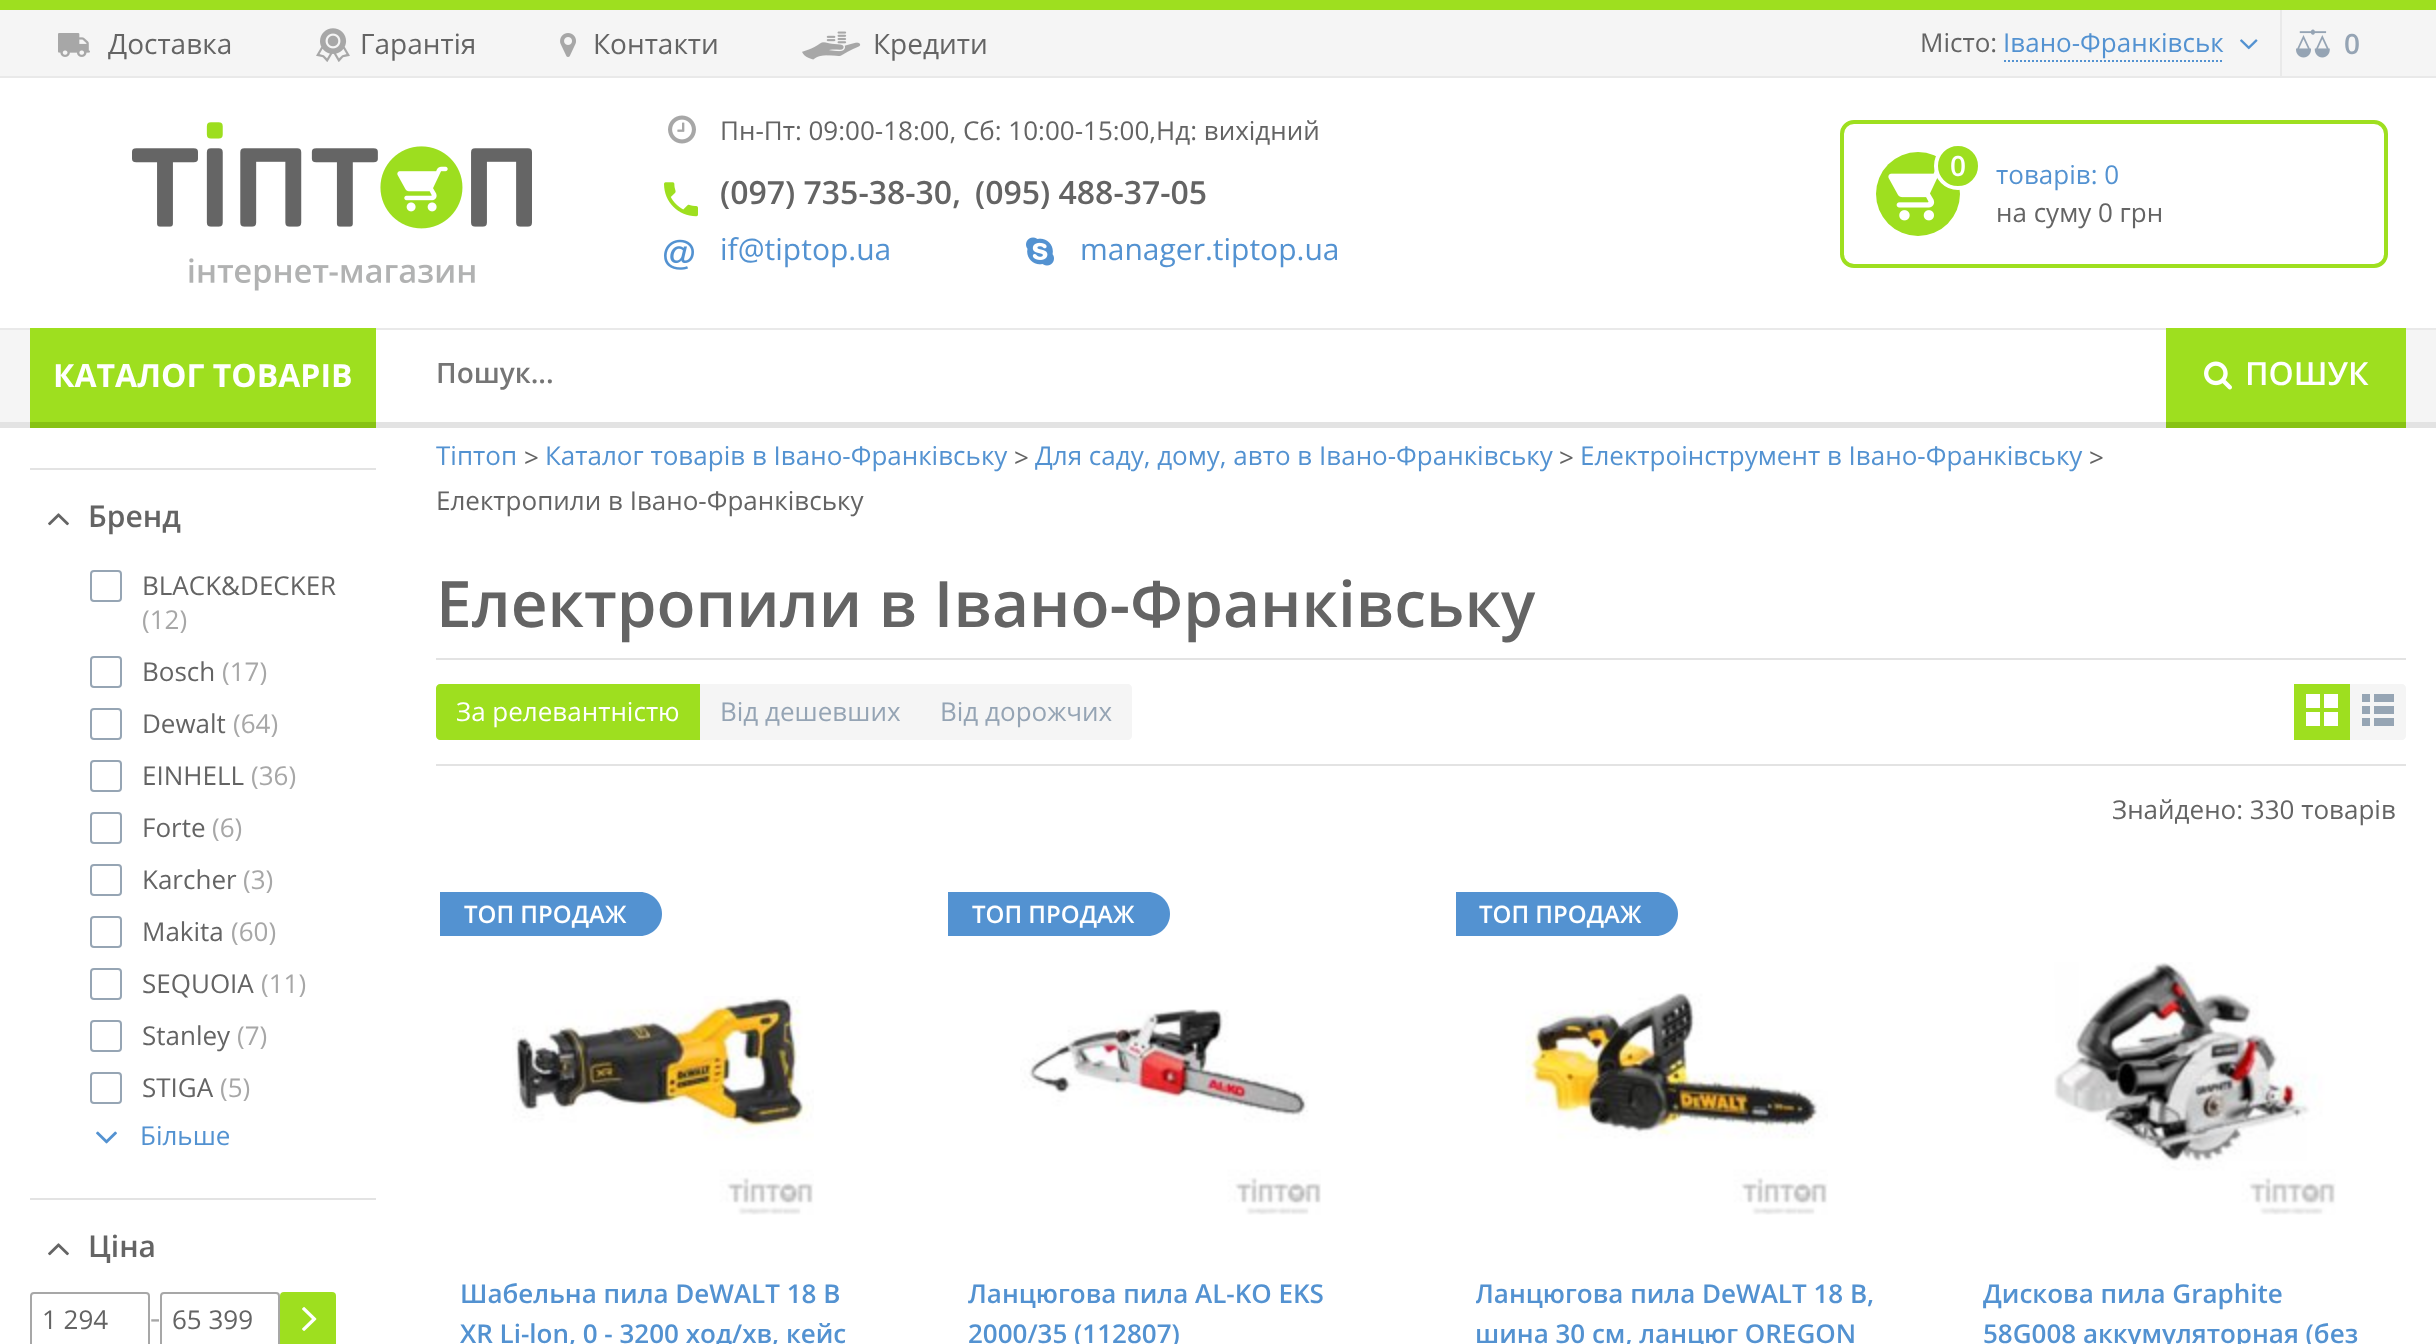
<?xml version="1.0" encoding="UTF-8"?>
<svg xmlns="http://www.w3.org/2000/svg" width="2436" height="1344">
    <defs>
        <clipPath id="clip1"><rect x="968" y="1272" width="400" height="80"/></clipPath>
        <clipPath id="clip2"><rect x="1476" y="1272" width="398" height="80"/></clipPath>
    </defs>
    <rect width="100%" height="100%" fill="#FFFFFF"/>
    <rect x="0" y="0" width="2436" height="10" fill="#9EDF1F"/>
    <rect x="0" y="10" width="2436" height="66" fill="#F5F5F5"/>
    <rect x="0" y="76" width="2436" height="2" fill="#E9E9E9"/>
    <image x="58" y="33" width="32" height="24" href="img_01.png"/>
    <text x="108" y="54" font-family="Open Sans" font-size="28" fill="#646464">Доставка</text>
    <image x="316" y="28" width="34" height="34" href="img_02.png"/>
    <text x="360" y="54" font-family="Open Sans" font-size="28" fill="#646464">Гарантія</text>
    <image x="560" y="33" width="16" height="24" href="img_03.png"/>
    <text x="593" y="54" font-family="Open Sans" font-size="28" fill="#646464">Контакти</text>
    <image x="802" y="31" width="59" height="29" href="img_04.png"/>
    <text x="873" y="54" font-family="Open Sans" font-size="28" fill="#646464">Кредити</text>
    <text x="1920" y="52" font-family="Open Sans" font-size="26" fill="#646464">Місто:</text>
    <path d="M 2004 61 H 2224" fill="none" stroke="#5392D1" stroke-width="2" stroke-dasharray="2 2"/>
    <text x="2003" y="52" font-family="Open Sans" font-size="26" fill="#5392D1">Івано-Франківськ</text>
    <image x="2240" y="39" width="18" height="11" href="img_05.png"/>
    <rect x="2280" y="10" width="2" height="66" fill="#E9E9E9"/>
    <image x="2296" y="29" width="34" height="29" href="img_06.png"/>
    <text x="2344" y="54" font-family="Open Sans" font-size="28" font-weight="600" fill="#95A4B4">0</text>
    <image x="132" y="122" width="400" height="169" href="img_07.png"/>
    <image x="668" y="115" width="28" height="29" href="img_08.png"/>
    <text x="720" y="140" font-family="Open Sans" font-size="26" fill="#646464">Пн-Пт: 09:00-18:00, Сб: 10:00-15:00,Нд: вихідний</text>
    <image x="664" y="182" width="34" height="35" href="img_09.png"/>
    <text x="720" y="204" font-family="Open Sans" font-size="32" font-weight="600" fill="#646464">(097) 735-38-30,</text>
    <text x="975" y="204" font-family="Open Sans" font-size="32" font-weight="600" fill="#646464">(095) 488-37-05</text>
    <image x="664" y="239" width="30" height="31" href="img_10.png"/>
    <text x="720" y="260" font-family="Open Sans" font-size="30" fill="#5392D1">if@tiptop.ua</text>
    <image x="1026" y="237" width="28" height="29" href="img_11.png"/>
    <text x="1080" y="260" font-family="Open Sans" font-size="30" fill="#5392D1">manager.tiptop.ua</text>
    <rect x="1842" y="122" width="544" height="144" rx="12" fill="none" stroke="#9EDF1F" stroke-width="4"/>
    <circle cx="1918" cy="194" r="42" fill="#9EDF1F"/>
    <image x="1888" y="171" width="50" height="50" href="img_12.png"/>
    <circle cx="1958" cy="166" r="22" fill="#9EDF1F" stroke="#FFFFFF" stroke-width="4"/>
    <text x="1950" y="176" font-family="Open Sans" font-size="28" font-weight="600" fill="#FFFFFF">0</text>
    <text x="1996" y="184" font-family="Open Sans" font-size="26" fill="#5392D1">товарів: 0</text>
    <text x="1996" y="222" font-family="Open Sans" font-size="26" fill="#646464">на суму 0 грн</text>
    <rect x="0" y="330" width="2436" height="92" fill="#F5F5F5"/>
    <rect x="0" y="328" width="2436" height="2" fill="#E9E9E9"/>
    <rect x="0" y="422" width="2436" height="6" fill="#E3E3E3"/>
    <rect x="30" y="328" width="346" height="94" fill="#9EDF1F"/>
    <rect x="30" y="422" width="346" height="6" fill="#87C214"/>
    <text x="53" y="387" font-family="Open Sans" font-size="32" font-weight="700" fill="#FFFFFF">КАТАЛОГ ТОВАРІВ</text>
    <rect x="376" y="330" width="1790" height="92" fill="#FFFFFF"/>
    <text x="436" y="383" font-family="Open Sans" font-size="28" font-weight="600" fill="#757575">Пошук...</text>
    <rect x="2166" y="328" width="240" height="94" fill="#9EDF1F"/>
    <rect x="2166" y="422" width="240" height="6" fill="#87C214"/>
    <image x="2204" y="361" width="28" height="29" href="img_13.png"/>
    <text x="2245" y="385" font-family="Open Sans" font-size="32" font-weight="600" fill="#FFFFFF">ПОШУК</text>
    <rect x="30" y="468" width="346" height="2" fill="#E3E3E3"/>
    <image x="48" y="513" width="21" height="13" href="img_14.png"/>
    <text x="88" y="527" font-family="Open Sans" font-size="30" font-weight="600" fill="#646464">Бренд</text>
    <rect x="91" y="571" width="30" height="30" rx="3" fill="none" stroke="#96A5B4" stroke-width="2"/>
    <text x="142" y="595" font-family="Open Sans" font-size="26" fill="#646464">BLACK&amp;DECKER</text>
    <text x="142" y="629" font-family="Open Sans" font-size="26" fill="#A7A7A7">(12)</text>
    <rect x="91" y="657" width="30" height="30" rx="3" fill="none" stroke="#96A5B4" stroke-width="2"/>
    <text x="142" y="681" font-family="Open Sans" font-size="26" fill="#646464">Bosch</text>
    <text x="222" y="681" font-family="Open Sans" font-size="26" fill="#A7A7A7">(17)</text>
    <rect x="91" y="709" width="30" height="30" rx="3" fill="none" stroke="#96A5B4" stroke-width="2"/>
    <text x="142" y="733" font-family="Open Sans" font-size="26" fill="#646464">Dewalt</text>
    <text x="233" y="733" font-family="Open Sans" font-size="26" fill="#A7A7A7">(64)</text>
    <rect x="91" y="761" width="30" height="30" rx="3" fill="none" stroke="#96A5B4" stroke-width="2"/>
    <text x="142" y="785" font-family="Open Sans" font-size="26" fill="#646464">EINHELL</text>
    <text x="251" y="785" font-family="Open Sans" font-size="26" fill="#A7A7A7">(36)</text>
    <rect x="91" y="813" width="30" height="30" rx="3" fill="none" stroke="#96A5B4" stroke-width="2"/>
    <text x="142" y="837" font-family="Open Sans" font-size="26" fill="#646464">Forte</text>
    <text x="212" y="837" font-family="Open Sans" font-size="26" fill="#A7A7A7">(6)</text>
    <rect x="91" y="865" width="30" height="30" rx="3" fill="none" stroke="#96A5B4" stroke-width="2"/>
    <text x="142" y="889" font-family="Open Sans" font-size="26" fill="#646464">Karcher</text>
    <text x="243" y="889" font-family="Open Sans" font-size="26" fill="#A7A7A7">(3)</text>
    <rect x="91" y="917" width="30" height="30" rx="3" fill="none" stroke="#96A5B4" stroke-width="2"/>
    <text x="142" y="941" font-family="Open Sans" font-size="26" fill="#646464">Makita</text>
    <text x="231" y="941" font-family="Open Sans" font-size="26" fill="#A7A7A7">(60)</text>
    <rect x="91" y="969" width="30" height="30" rx="3" fill="none" stroke="#96A5B4" stroke-width="2"/>
    <text x="142" y="993" font-family="Open Sans" font-size="26" fill="#646464">SEQUOIA</text>
    <text x="261" y="993" font-family="Open Sans" font-size="26" fill="#A7A7A7">(11)</text>
    <rect x="91" y="1021" width="30" height="30" rx="3" fill="none" stroke="#96A5B4" stroke-width="2"/>
    <text x="142" y="1045" font-family="Open Sans" font-size="26" fill="#646464">Stanley</text>
    <text x="237" y="1045" font-family="Open Sans" font-size="26" fill="#A7A7A7">(7)</text>
    <rect x="91" y="1073" width="30" height="30" rx="3" fill="none" stroke="#96A5B4" stroke-width="2"/>
    <text x="142" y="1097" font-family="Open Sans" font-size="26" fill="#646464">STIGA</text>
    <text x="220" y="1097" font-family="Open Sans" font-size="26" fill="#A7A7A7">(5)</text>
    <image x="96" y="1131" width="21" height="13" href="img_15.png"/>
    <text x="140" y="1145" font-family="Open Sans" font-size="26" fill="#5392D1">Більше</text>
    <rect x="30" y="1198" width="346" height="2" fill="#E3E3E3"/>
    <image x="48" y="1243" width="21" height="13" href="img_14.png"/>
    <text x="88" y="1257" font-family="Open Sans" font-size="30" font-weight="600" fill="#646464">Ціна</text>
    <rect x="31" y="1293" width="118" height="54" rx="3" fill="none" stroke="#A7A7A7" stroke-width="2"/>
    <text x="42" y="1329" font-family="Open Sans" font-size="26" fill="#646464">1 294</text>
    <text x="150" y="1329" font-family="Open Sans" font-size="32" fill="#A7A7A7">-</text>
    <rect x="161" y="1293" width="118" height="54" rx="3" fill="none" stroke="#A7A7A7" stroke-width="2"/>
    <text x="172" y="1329" font-family="Open Sans" font-size="26" fill="#646464">65 399</text>
    <rect x="280" y="1292" width="56" height="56" rx="4" fill="#9EDF1F"/>
    <image x="302" y="1307" width="15" height="24" href="img_16.png"/>
    <text x="436" y="465" font-family="Open Sans" font-size="26" fill="#5392D1">Тіптоп</text>
    <text x="524" y="467" font-family="Open Sans" font-size="26" fill="#646464">&gt;</text>
    <text x="545" y="465" font-family="Open Sans" font-size="26" fill="#5392D1">Каталог товарів в Івано-Франківську</text>
    <text x="1014" y="467" font-family="Open Sans" font-size="26" fill="#646464">&gt;</text>
    <text x="1035" y="465" font-family="Open Sans" font-size="26" fill="#5392D1">Для саду, дому, авто в Івано-Франківську</text>
    <text x="1559" y="467" font-family="Open Sans" font-size="26" fill="#646464">&gt;</text>
    <text x="1580" y="465" font-family="Open Sans" font-size="26" fill="#5392D1">Електроінструмент в Івано-Франківську</text>
    <text x="2089" y="467" font-family="Open Sans" font-size="26" fill="#646464">&gt;</text>
    <text x="436" y="510" font-family="Open Sans" font-size="26" fill="#646464">Електропили в Івано-Франківську</text>
    <rect x="436" y="658" width="1970" height="2" fill="#E3E3E3"/>
    <text x="436" y="627" font-family="Open Sans" font-size="64" font-weight="600" fill="#646464">Електропили в Івано-Франківську</text>
    <rect x="436" y="764" width="1970" height="2" fill="#E3E3E3"/>
    <path d="M 440 684 H 700 V 740 H 440 C 438 740 436 738 436 736 V 688 C 436 686 438 684 440 684 Z" fill="#9EDF1F"/>
    <text x="456" y="721" font-family="Open Sans" font-size="26" fill="#FFFFFF">За релевантністю</text>
    <rect x="700" y="684" width="220" height="56" fill="#F5F5F5"/>
    <text x="720" y="721" font-family="Open Sans" font-size="26" fill="#95A4B4">Від дешевших</text>
    <path d="M 920 684 H 1128 C 1130 684 1132 686 1132 688 V 736 C 1132 738 1130 740 1128 740 H 920 Z" fill="#F5F5F5"/>
    <text x="940" y="721" font-family="Open Sans" font-size="26" fill="#95A4B4">Від дорожчих</text>
    <rect x="2294" y="684" width="56" height="56" fill="#9EDF1F"/>
    <image x="2306" y="694" width="32" height="32" href="img_17.png"/>
    <path d="M 2350 684 H 2402 C 2404 684 2406 686 2406 688 V 736 C 2406 738 2404 740 2402 740 H 2350 Z" fill="#F5F5F5"/>
    <image x="2362" y="694" width="32" height="32" href="img_18.png"/>
    <text x="2112" y="819" font-family="Open Sans" font-size="26" fill="#646464">Знайдено: 330 товарів</text>
    <path d="M 440 892 H 640 C 652 892 662 902 662 914 C 662 926 652 936 640 936 H 440 Z" fill="#5392D1"/>
    <text x="464" y="923" font-family="Open Sans" font-size="24" font-weight="600" fill="#FFFFFF">ТОП ПРОДАЖ</text>
    <image x="512" y="996" width="302" height="219" href="img_19.png"/>
    <text font-family="Open Sans" font-size="26" font-weight="600" fill="#5392D1">
        <tspan x="460" y="1303">Шабельна пила DeWALT 18 В</tspan>
        <tspan x="460" y="1343">XR Li-lon, 0 - 3200 ход/хв, кейс</tspan>
    </text>
    <path d="M 948 892 H 1148 C 1160 892 1170 902 1170 914 C 1170 926 1160 936 1148 936 H 948 Z" fill="#5392D1"/>
    <text x="972" y="923" font-family="Open Sans" font-size="24" font-weight="600" fill="#FFFFFF">ТОП ПРОДАЖ</text>
    <image x="1020" y="1009" width="301" height="206" href="img_20.png"/>
    <g clip-path="url(#clip1)">
        <text x="968" y="1303" font-family="Open Sans" font-size="26" font-weight="600" fill="#5392D1">Ланцюгова пила AL-KO EKS</text>
    </g>
    <text x="968" y="1343" font-family="Open Sans" font-size="26" font-weight="600" fill="#5392D1">2000/35 (112807)</text>
    <path d="M 1456 892 H 1656 C 1668 892 1678 902 1678 914 C 1678 926 1668 936 1656 936 H 1456 Z" fill="#5392D1"/>
    <text x="1479" y="923" font-family="Open Sans" font-size="24" font-weight="600" fill="#FFFFFF">ТОП ПРОДАЖ</text>
    <image x="1525" y="993" width="303" height="222" href="img_21.png"/>
    <g clip-path="url(#clip2)">
        <text x="1475" y="1303" font-family="Open Sans" font-size="26" font-weight="600" fill="#5392D1">Ланцюгова пила DeWALT 18 В,</text>
    </g>
    <text x="1475" y="1343" font-family="Open Sans" font-size="26" font-weight="600" fill="#5392D1">шина 30 см, ланцюг OREGON</text>
    <image x="2054" y="962" width="282" height="253" href="img_22.png"/>
    <text font-family="Open Sans" font-size="26" font-weight="600" fill="#5392D1">
        <tspan x="1983" y="1303">Дискова пила Graphite</tspan>
        <tspan x="1983" y="1343">58G008 аккумуляторная (без</tspan>
    </text>
</svg>
